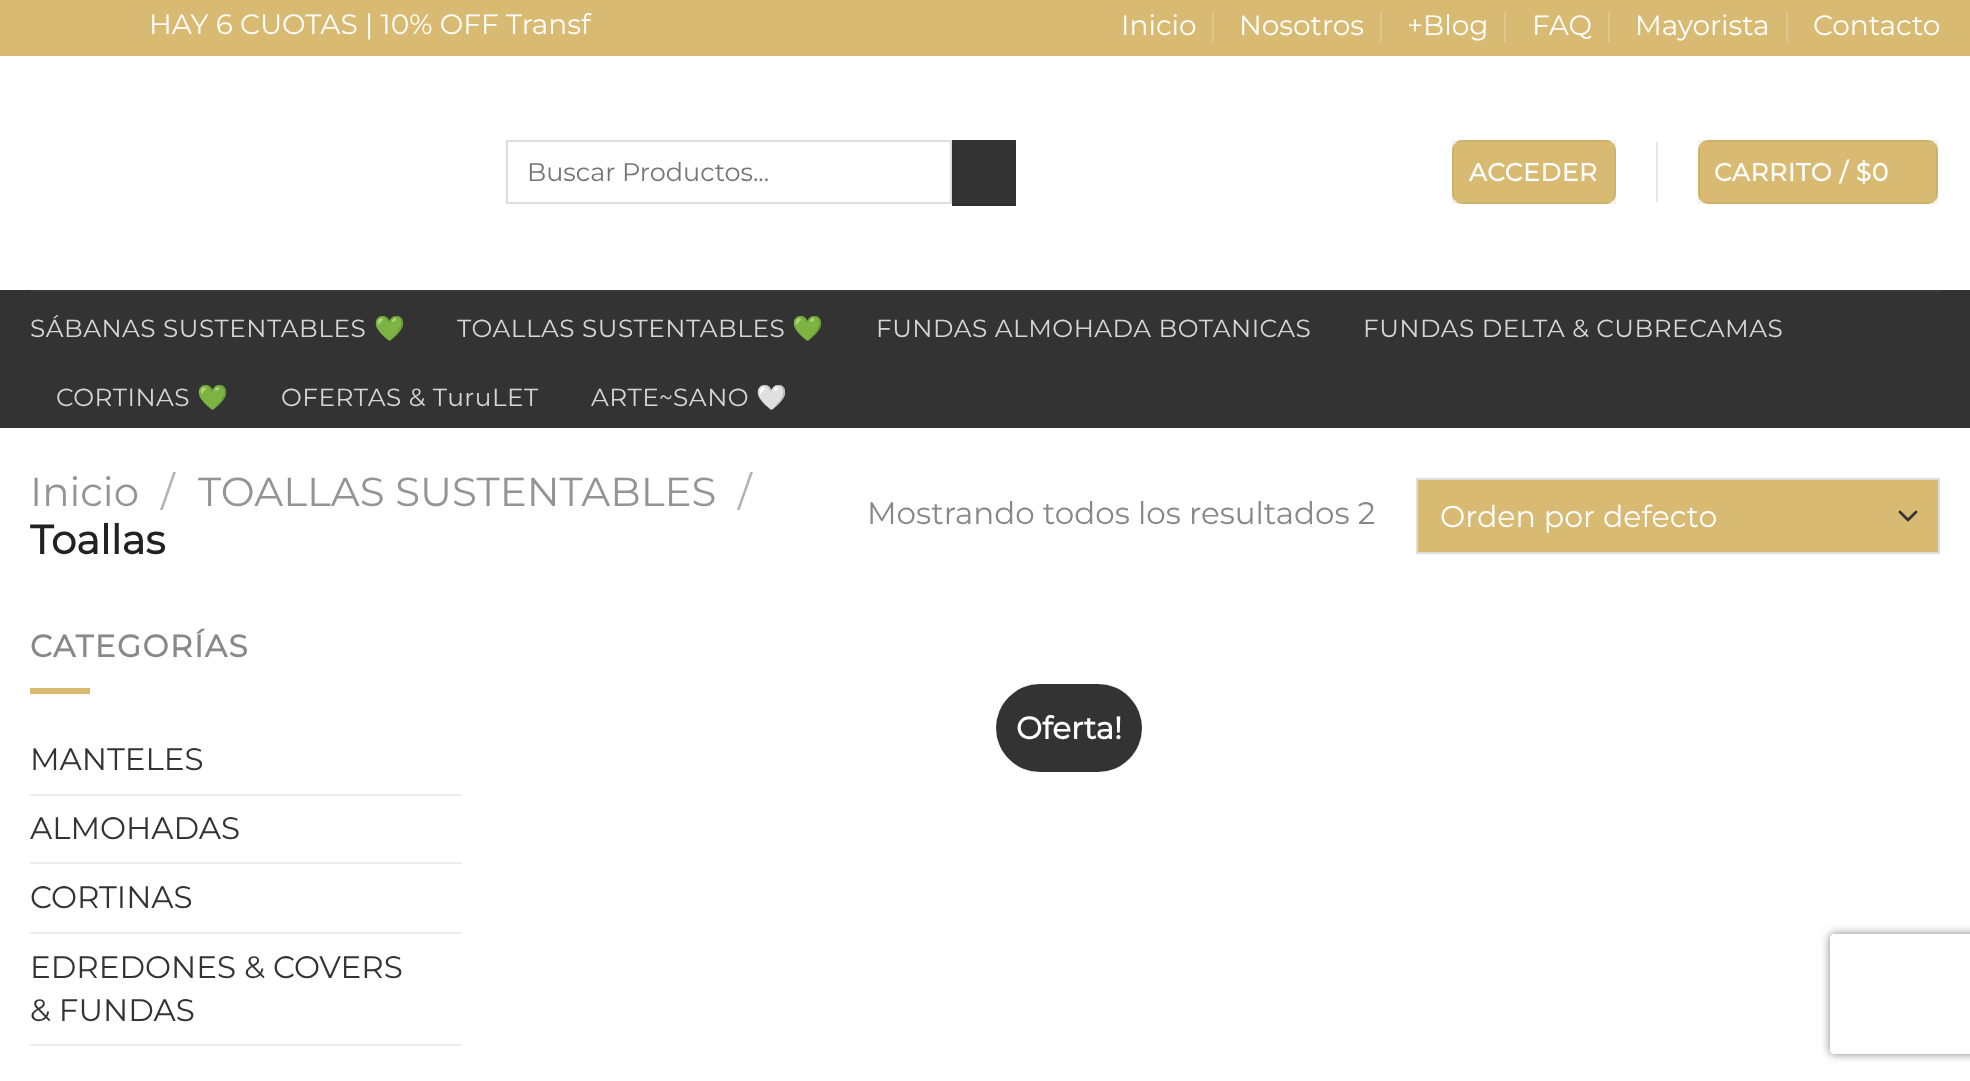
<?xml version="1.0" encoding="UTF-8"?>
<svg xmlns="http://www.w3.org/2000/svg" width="1970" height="1081">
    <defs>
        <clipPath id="clip1"><path d="M 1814 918 H 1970 V 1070 H 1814 Z M 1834 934 H 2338 C 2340 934 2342 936 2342 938 V 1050 C 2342 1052 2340 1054 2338 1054 H 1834 C 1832 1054 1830 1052 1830 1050 V 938 C 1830 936 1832 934 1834 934 Z" clip-rule="evenodd"/></clipPath>
        <filter id="blur1" x="-50%" y="-200%" width="200%" height="500%"><feGaussianBlur stdDeviation="5"/></filter>
    </defs>
    <rect width="100%" height="100%" fill="#FFFFFF"/>
    <rect x="0" y="0" width="1970" height="56" fill="#D8BA72"/>
    <text x="149" y="34" font-family="Montserrat" font-size="28" font-weight="100" fill="#FFFFFF">HAY 6 CUOTAS | 10% OFF Transf</text>
    <text x="1121" y="35" font-family="Montserrat" font-size="28" font-weight="100" fill="#FFFFFF">Inicio</text>
    <rect x="1212" y="12" width="2" height="30" fill="#E0C88E"/>
    <text x="1239" y="35" font-family="Montserrat" font-size="28" font-weight="100" fill="#FFFFFF">Nosotros</text>
    <rect x="1380" y="12" width="2" height="30" fill="#E0C88E"/>
    <text x="1407" y="35" font-family="Montserrat" font-size="28" font-weight="100" fill="#FFFFFF">+Blog</text>
    <rect x="1504" y="12" width="2" height="30" fill="#E0C88E"/>
    <text x="1532" y="35" font-family="Montserrat" font-size="28" font-weight="100" fill="#FFFFFF">FAQ</text>
    <rect x="1608" y="12" width="2" height="30" fill="#E0C88E"/>
    <text x="1635" y="35" font-family="Montserrat" font-size="28" font-weight="100" fill="#FFFFFF">Mayorista</text>
    <rect x="1786" y="12" width="2" height="30" fill="#E0C88E"/>
    <text x="1813" y="35" font-family="Montserrat" font-size="28" font-weight="100" fill="#FFFFFF">Contacto</text>
    <rect x="507" y="141" width="444" height="62" fill="none" stroke="#DDDDDD" stroke-width="2"/>
    <text x="527" y="181" font-family="Montserrat" font-size="25.5" font-weight="100" fill="#757575">Buscar Productos...</text>
    <rect x="953" y="141" width="62" height="64" fill="#333333" stroke="#303030" stroke-width="2"/>
    <rect x="1452" y="140" width="164" height="64" rx="10" fill="#D8BA72"/>
    <rect x="1453" y="141" width="162" height="62" fill="none" stroke="#000000" stroke-opacity="0.05" stroke-width="2"/>
    <text x="1469" y="181" font-family="Montserrat" font-size="24.8" font-weight="700" letter-spacing="0.75" fill="#FFFFFF">ACCEDER</text>
    <rect x="1656" y="142" width="2" height="60" fill="#E6E6E6"/>
    <rect x="1698" y="140" width="240" height="64" rx="10" fill="#D8BA72"/>
    <rect x="1699" y="141" width="238" height="62" fill="none" stroke="#000000" stroke-opacity="0.05" stroke-width="2"/>
    <text x="1714" y="181" font-family="Montserrat" font-size="24.8" font-weight="700" letter-spacing="0.75" fill="#FFFFFF">CARRITO / $0</text>
    <rect x="0" y="290" width="1970" height="138" fill="#333333"/>
    <rect x="30" y="290" width="1910" height="2" fill="#3C3C3C"/>
    <text x="30" y="337" font-family="Montserrat" font-size="24.8" font-weight="100" letter-spacing="0.5" fill="#D6D6D6">SÁBANAS SUSTENTABLES</text>
    <text x="374" y="337" font-family="Noto Color Emoji" font-size="24.8" letter-spacing="0.5" fill="#D6D6D6">💚</text>
    <text x="457" y="337" font-family="Montserrat" font-size="24.8" font-weight="100" letter-spacing="0.5" fill="#D6D6D6">TOALLAS SUSTENTABLES</text>
    <text x="792" y="337" font-family="Noto Color Emoji" font-size="24.8" letter-spacing="0.5" fill="#D6D6D6">💚</text>
    <text x="876" y="337" font-family="Montserrat" font-size="24.8" font-weight="100" letter-spacing="0.5" fill="#D6D6D6">FUNDAS ALMOHADA BOTANICAS</text>
    <text x="1363" y="337" font-family="Montserrat" font-size="24.8" font-weight="100" letter-spacing="0.5" fill="#D6D6D6">FUNDAS DELTA &amp; CUBRECAMAS</text>
    <text x="56" y="406" font-family="Montserrat" font-size="24.8" font-weight="100" letter-spacing="0.5" fill="#D6D6D6">CORTINAS</text>
    <text x="197" y="406" font-family="Noto Color Emoji" font-size="24.8" letter-spacing="0.5" fill="#D6D6D6">💚</text>
    <text x="281" y="406" font-family="Montserrat" font-size="24.8" font-weight="100" letter-spacing="0.5" fill="#D6D6D6">OFERTAS &amp; TuruLET</text>
    <text x="591" y="406" font-family="Montserrat" font-size="24.8" font-weight="100" letter-spacing="0.5" fill="#D6D6D6">ARTE~SANO</text>
    <text x="756" y="406" font-family="Noto Color Emoji" font-size="24.8" letter-spacing="0.5" fill="#D6D6D6">🤍</text>
    <text x="30" y="506" font-family="Montserrat" font-size="40.4" font-weight="100" fill="#949494">Inicio</text>
    <text x="161" y="506" font-family="Montserrat" font-size="40.4" font-weight="100" fill="#B2B2B2">/</text>
    <text x="198" y="506" font-family="Montserrat" font-size="40.4" font-weight="100" fill="#949494">TOALLAS SUSTENTABLES</text>
    <text x="738" y="506" font-family="Montserrat" font-size="40.4" font-weight="100" fill="#B2B2B2">/</text>
    <text x="30" y="554" font-family="Montserrat" font-size="40.4" font-weight="700" fill="#222222">Toallas</text>
    <text x="867" y="524" font-family="Montserrat" font-size="31" font-weight="100" fill="#888888">Mostrando todos los resultados 2</text>
    <rect x="1418" y="480" width="520" height="72" fill="#D8BA72"/>
    <path d="M 1900 512 L 1908 520 L 1916 512" fill="none" stroke="#333333" stroke-width="2.7" stroke-linecap="round" stroke-linejoin="round"/>
    <rect x="1417" y="479" width="522" height="74" fill="none" stroke="#DDDDDD" stroke-width="2"/>
    <text x="1440" y="527" font-family="Montserrat" font-size="30.1" font-weight="100" fill="#FFFFFF">Orden por defecto</text>
    <text x="30" y="657" font-family="Montserrat" font-size="31" font-weight="700" letter-spacing="1.5" fill="#888888">CATEGORÍAS</text>
    <rect x="30" y="688" width="60" height="6" fill="#D8BA72"/>
    <text x="30" y="770" font-family="Montserrat" font-size="31" font-weight="100" fill="#333333">MANTELES</text>
    <rect x="30" y="794" width="432" height="2" fill="#ECECEC"/>
    <text x="30" y="839" font-family="Montserrat" font-size="31" font-weight="100" fill="#333333">ALMOHADAS</text>
    <rect x="30" y="862" width="432" height="2" fill="#ECECEC"/>
    <text x="30" y="908" font-family="Montserrat" font-size="31" font-weight="100" fill="#333333">CORTINAS</text>
    <rect x="30" y="932" width="432" height="2" fill="#ECECEC"/>
    <text font-family="Montserrat" font-size="31" font-weight="100" fill="#333333">
        <tspan x="30" y="978">EDREDONES &amp; COVERS</tspan>
        <tspan x="30" y="1021">&amp; FUNDAS</tspan>
    </text>
    <rect x="30" y="1044" width="432" height="2" fill="#ECECEC"/>
    <rect x="996" y="684" width="146" height="88" rx="44" fill="#333333"/>
    <text x="1016" y="739" font-family="Montserrat" font-size="31" font-weight="700" fill="#FFFFFF">Oferta!</text>
    <g clip-path="url(#clip1)">
        <rect x="1830" y="934" width="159" height="120" rx="4" fill="#808080" filter="url(#blur1)"/>
    </g>
</svg>
